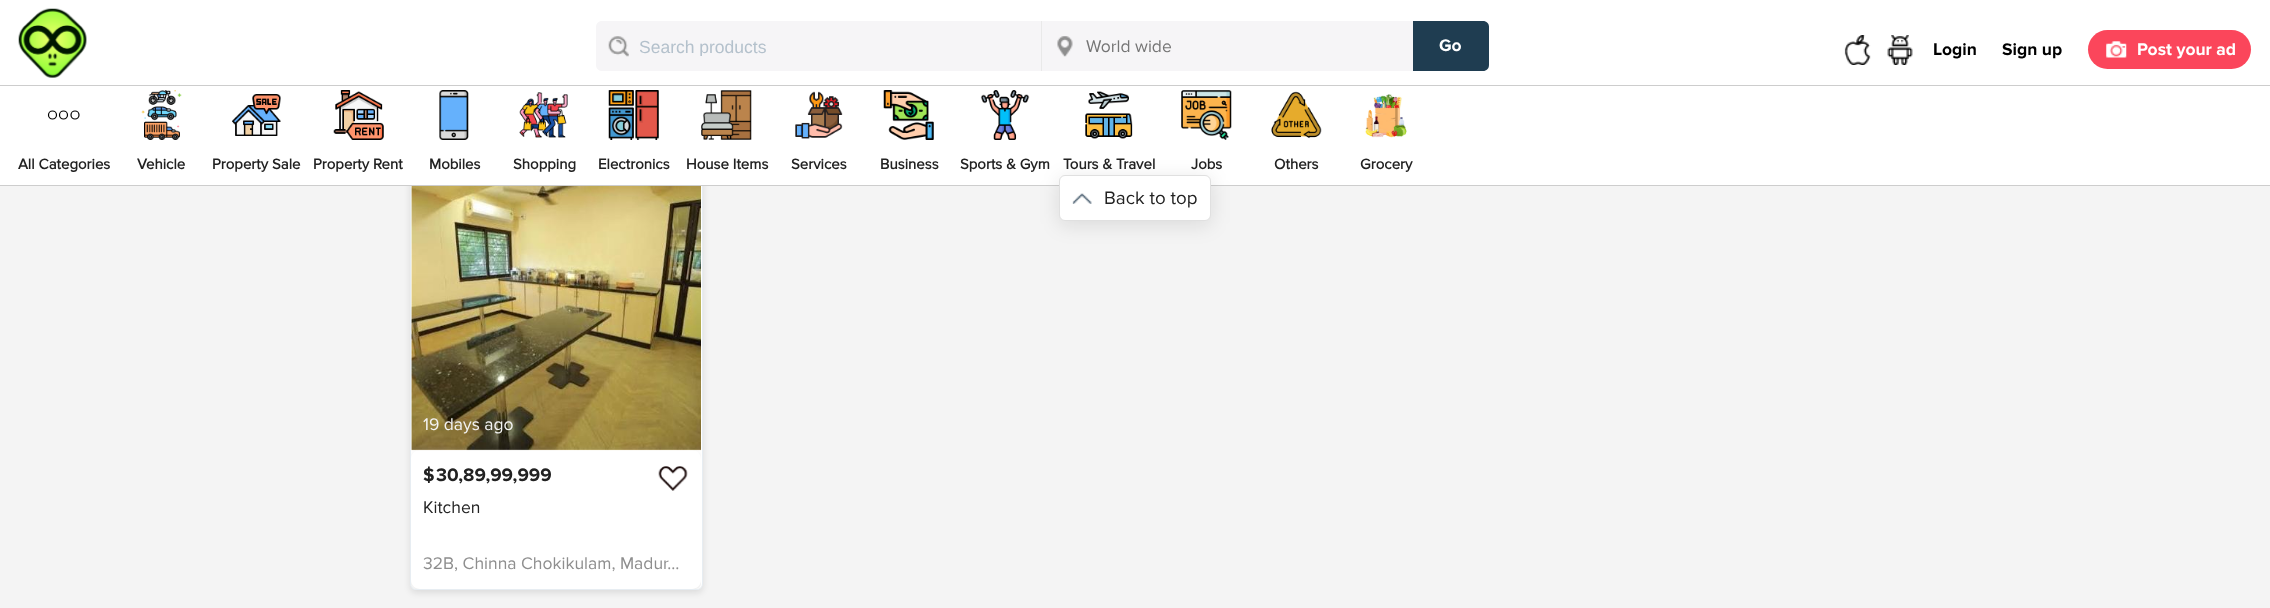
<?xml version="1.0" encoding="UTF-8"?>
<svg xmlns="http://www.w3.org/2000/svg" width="2270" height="608">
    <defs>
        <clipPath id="clip1"><rect x="640" y="36" width="386" height="20"/></clipPath>
        <filter id="blur1" x="-50%" y="-200%" width="200%" height="500%"><feGaussianBlur stdDeviation="3"/></filter>
        <filter id="blur2" x="-50%" y="-200%" width="200%" height="500%"><feGaussianBlur stdDeviation="10"/></filter>
        <clipPath id="clip2"><rect x="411" y="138" width="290" height="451" rx="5"/></clipPath>
        <clipPath id="clip3"><path d="M 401 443 H 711 V 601 H 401 Z M 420 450 H 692 C 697 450 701 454 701 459 V 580 C 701 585 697 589 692 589 H 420 C 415 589 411 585 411 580 V 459 C 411 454 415 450 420 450 Z" clip-rule="evenodd"/></clipPath>
    </defs>
    <rect width="100%" height="100%" fill="#F4F4F4"/>
    <rect x="0" y="0" width="2270" height="85" fill="#FFFFFF"/>
    <rect x="0" y="85" width="2270" height="1" fill="#CDCDCD"/>
    <image x="18" y="8" width="69" height="70" href="img_01.png"/>
    <path d="M 602 21 H 1043 V 71 H 602 C 598.5 71 596 68.5 596 65 V 27 C 596 23.5 598.5 21 602 21 Z" fill="#F6F5F7"/>
    <image x="608" y="36" width="21" height="21" href="img_02.png"/>
    <rect x="1041" y="21" width="1" height="50" fill="#E9E9E9"/>
    <g clip-path="url(#clip1)">
        <text x="639" y="53" font-family="Liberation Sans" font-size="17.5" fill="#B4C1CC">Search products</text>
    </g>
    <rect x="1043" y="21" width="370" height="50" fill="#F6F5F7"/>
    <image x="1057" y="36" width="16" height="21" href="img_03.png"/>
    <text x="1086" y="52" font-family="Proxima Nova" font-size="17.5" fill="#757575">World wide</text>
    <path d="M 1413 21 H 1483 C 1486.5 21 1489 23.5 1489 27 V 65 C 1489 68.5 1486.5 71 1483 71 H 1413 Z" fill="#1F3D51"/>
    <text x="1439" y="51" font-family="Proxima Nova" font-size="17.5" font-weight="700" fill="#FFFFFF">Go</text>
    <image x="1844" y="35" width="27" height="30" href="img_04.png"/>
    <image x="1887" y="35" width="26" height="30" href="img_05.png"/>
    <text x="1933" y="55" font-family="Proxima Nova" font-size="17.5" font-weight="700" fill="#000000">Login</text>
    <text x="2002" y="55" font-family="Proxima Nova" font-size="17.5" font-weight="700" fill="#000000">Sign up</text>
    <rect x="2088" y="30" width="163" height="39" rx="19.5" fill="#FB465B"/>
    <image x="2106" y="41" width="21" height="17" href="img_06.png"/>
    <text x="2137" y="55" font-family="Proxima Nova" font-size="17.5" font-weight="700" fill="#FFFFFF">Post your ad</text>
    <rect x="410" y="139" width="293" height="454" rx="6" fill="#000000" fill-opacity="0.1" filter="url(#blur1)"/>
    <rect x="410.5" y="136.5" width="292" height="453" rx="5.5" fill="#FFFFFF" stroke="#E7EDF2"/>
    <rect x="0" y="86" width="2270" height="99" fill="#FFFFFF"/>
    <rect x="0" y="185" width="2270" height="1" fill="#CDCDCD"/>
    <circle cx="52.5" cy="115" r="4" fill="none" stroke="#000000" stroke-width="1.2"/>
    <circle cx="63.5" cy="115" r="4" fill="none" stroke="#000000" stroke-width="1.2"/>
    <circle cx="75" cy="115" r="4" fill="none" stroke="#000000" stroke-width="1.2"/>
    <text x="18" y="169" font-family="'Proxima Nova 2'" font-size="15" font-weight="700" fill="#222222">All Categories</text>
    <image x="141" y="90" width="41" height="50" href="img_07.png"/>
    <text x="137" y="169" font-family="'Proxima Nova 2'" font-size="15" font-weight="700" fill="#222222">Vehicle</text>
    <image x="232" y="94" width="49" height="42" href="img_08.png"/>
    <text x="212" y="169" font-family="'Proxima Nova 2'" font-size="15" font-weight="700" fill="#222222">Property Sale</text>
    <image x="333" y="90" width="51" height="50" href="img_09.png"/>
    <text x="313" y="169" font-family="'Proxima Nova 2'" font-size="15" font-weight="700" fill="#222222">Property Rent</text>
    <image x="439" y="90" width="30" height="50" href="img_10.png"/>
    <text x="429" y="169" font-family="'Proxima Nova 2'" font-size="15" font-weight="700" fill="#222222">Mobiles</text>
    <image x="519" y="92" width="49" height="46" href="img_11.png"/>
    <text x="513" y="169" font-family="'Proxima Nova 2'" font-size="15" font-weight="700" fill="#222222">Shopping</text>
    <image x="608" y="90" width="51" height="50" href="img_12.png"/>
    <text x="598" y="169" font-family="'Proxima Nova 2'" font-size="15" font-weight="700" fill="#222222">Electronics</text>
    <image x="701" y="90" width="51" height="50" href="img_13.png"/>
    <text x="686" y="169" font-family="'Proxima Nova 2'" font-size="15" font-weight="700" fill="#222222">House Items</text>
    <image x="795" y="91" width="48" height="48" href="img_14.png"/>
    <text x="791" y="169" font-family="'Proxima Nova 2'" font-size="15" font-weight="700" fill="#222222">Services</text>
    <image x="883" y="90" width="51" height="50" href="img_15.png"/>
    <text x="880" y="169" font-family="'Proxima Nova 2'" font-size="15" font-weight="700" fill="#222222">Business</text>
    <image x="980" y="90" width="50" height="50" href="img_16.png"/>
    <text x="960" y="169" font-family="'Proxima Nova 2'" font-size="15" font-weight="700" fill="#222222">Sports &amp; Gym</text>
    <image x="1085" y="91" width="48" height="48" href="img_17.png"/>
    <text x="1063" y="169" font-family="'Proxima Nova 2'" font-size="15" font-weight="700" fill="#222222">Tours &amp; Travel</text>
    <image x="1181" y="90" width="51" height="50" href="img_18.png"/>
    <text x="1191" y="169" font-family="'Proxima Nova 2'" font-size="15" font-weight="700" fill="#222222">Jobs</text>
    <image x="1271" y="91" width="51" height="48" href="img_19.png"/>
    <text x="1274" y="169" font-family="'Proxima Nova 2'" font-size="15" font-weight="700" fill="#222222">Others</text>
    <image x="1365" y="94" width="42" height="44" href="img_20.png"/>
    <text x="1360" y="169" font-family="'Proxima Nova 2'" font-size="15" font-weight="700" fill="#222222">Grocery</text>
    <rect x="1059" y="179" width="152" height="46" rx="6" fill="#000000" fill-opacity="0.11" filter="url(#blur2)"/>
    <rect x="1059.5" y="175.5" width="151" height="45" rx="5.5" fill="#FFFFFF" stroke="#E0E0E0"/>
    <image x="1072" y="193" width="20" height="11" href="img_21.png"/>
    <text x="1104" y="204" font-family="Proxima Nova" font-size="18.75" fill="#222222">Back to top</text>
    <g clip-path="url(#clip2)">
        <g clip-path="url(#clip3)">
            <rect x="411" y="453" width="290" height="138" rx="9" fill="#000000" fill-opacity="0.1" filter="url(#blur1)"/>
        </g>
    </g>
    <image x="411" y="186" width="290" height="265" href="img_22.png"/>
    <text x="423" y="430" font-family="Proxima Nova" font-size="17.5" fill="#F3F3F3">19 days ago</text>
    <text x="423" y="481" font-family="Proxima Nova" font-size="18.75" font-weight="700" fill="#222222">$</text>
    <text x="436" y="481" font-family="Proxima Nova" font-size="18.75" font-weight="700" fill="#222222">30,89,99,999</text>
    <image x="658" y="466" width="30" height="25" href="img_23.png"/>
    <text x="423" y="513" font-family="Proxima Nova" font-size="17.5" fill="#222222">Kitchen</text>
    <text x="423" y="569" font-family="Proxima Nova" font-size="17.5" fill="#8E8E8E">32B, Chinna Chokikulam, Madur…</text>
</svg>
